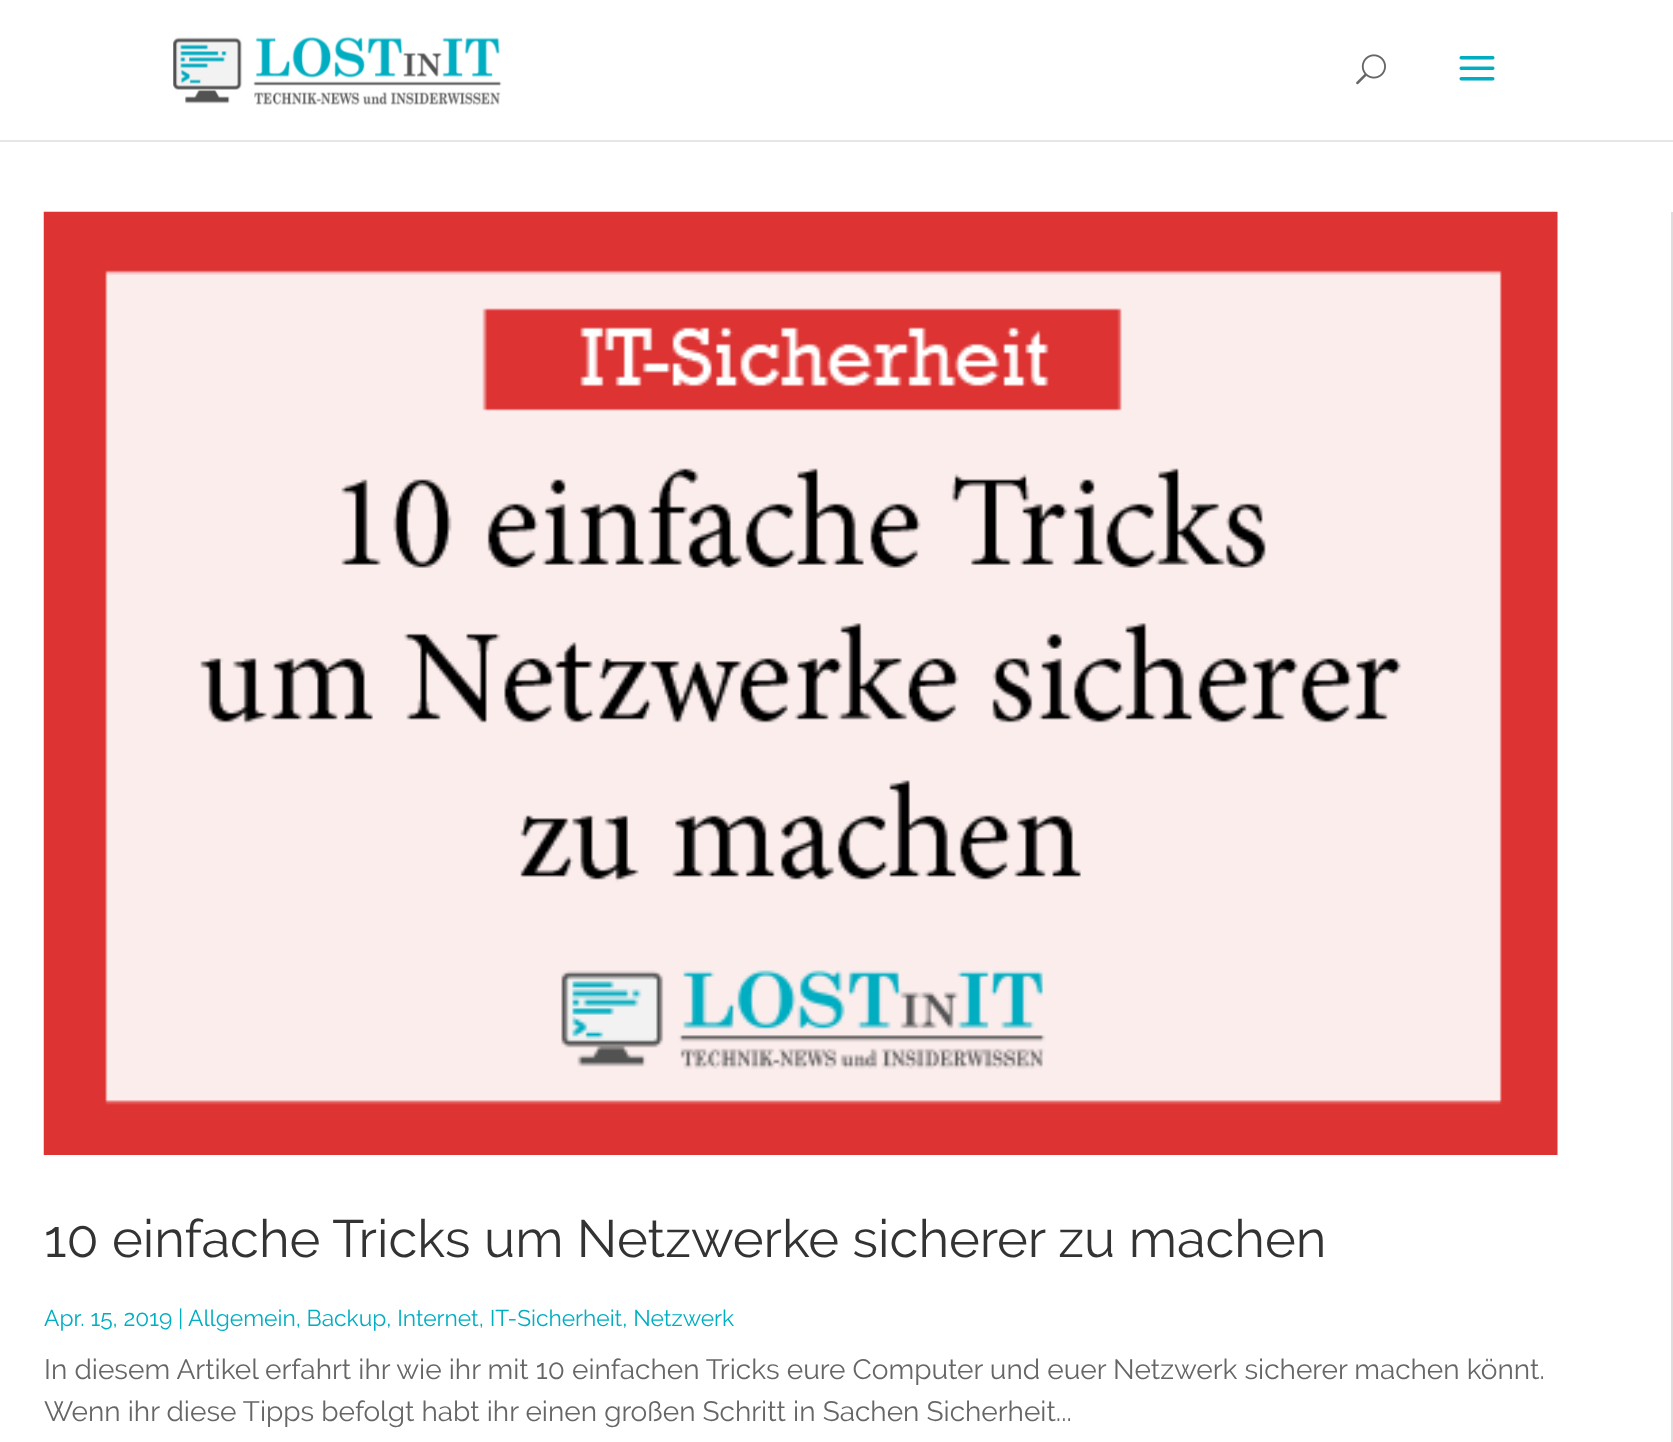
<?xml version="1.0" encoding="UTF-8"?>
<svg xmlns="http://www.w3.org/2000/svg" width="1673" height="1442">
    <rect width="100%" height="100%" fill="#FFFFFF"/>
    <rect x="0" y="140" width="1673" height="2" fill="#E6E6E6"/>
    <image x="173" y="36" width="329" height="70" href="img_01.png"/>
    <image x="1356" y="54" width="30" height="31" href="img_02.png"/>
    <image x="1459" y="56" width="36" height="25" href="img_03.png"/>
    <rect x="1671" y="212" width="2" height="1230" fill="#DDDDDD"/>
    <image x="43" y="211" width="1515" height="944" href="img_04.png"/>
    <text x="44" y="1257" font-family="Raleway" font-size="52.5" fill="#333333">10 einfache Tricks um Netzwerke sicherer zu machen</text>
    <text x="44" y="1326" font-family="Raleway" font-size="22.75" fill="#00ADC1">Apr. 15, 2019</text>
    <text x="178" y="1326" font-family="Raleway" font-size="22.75" fill="#00ADC1">|</text>
    <text x="188" y="1326" font-family="Raleway" font-size="22.75" fill="#00ADC1">Allgemein, Backup, Internet, IT-Sicherheit, Netzwerk</text>
    <text font-family="Raleway" font-size="28" fill="#666666">
        <tspan x="44" y="1379">In diesem Artikel erfahrt ihr wie ihr mit 10 einfachen Tricks eure Computer und euer Netzwerk sicherer machen könnt.</tspan>
        <tspan x="44" y="1421">Wenn ihr diese Tipps befolgt habt ihr einen großen Schritt in Sachen Sicherheit...</tspan>
    </text>
</svg>
